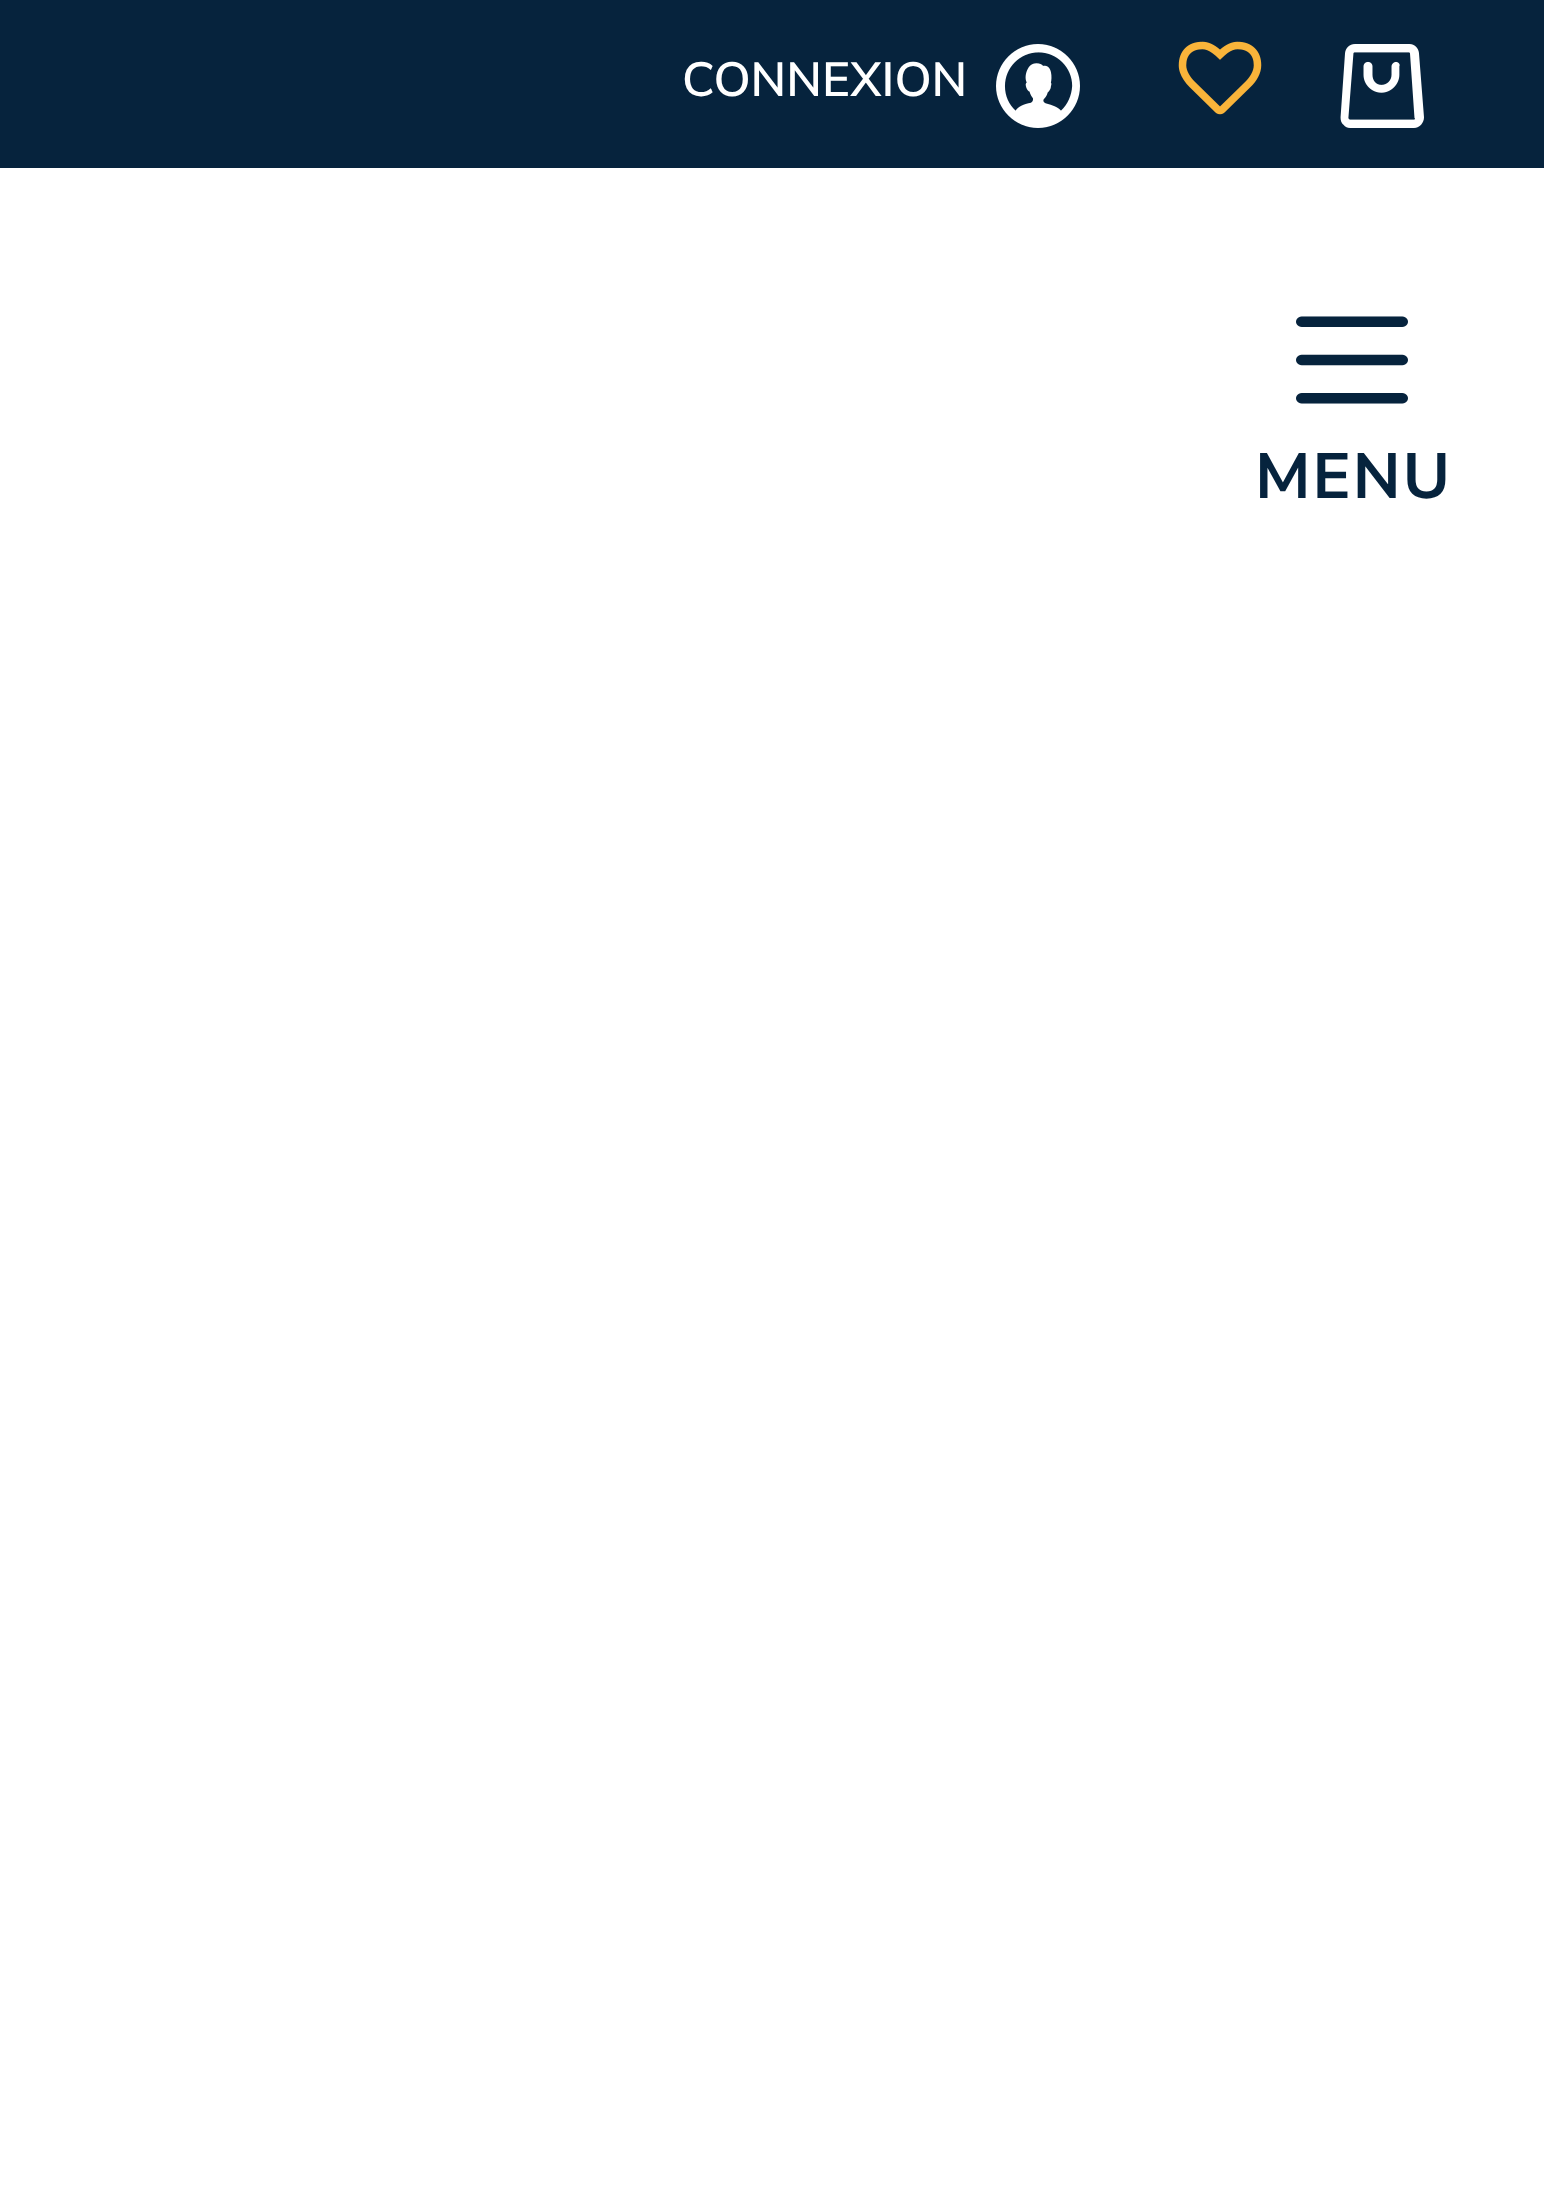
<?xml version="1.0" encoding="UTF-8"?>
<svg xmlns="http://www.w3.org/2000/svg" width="1544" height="2194">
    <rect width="100%" height="100%" fill="#FFFFFF"/>
    <rect x="0" y="0" width="1544" height="168" fill="#06233D"/>
    <text x="682" y="96" font-family="Nunito Sans" font-size="48" font-weight="600" fill="#FFFFFF">CONNEXION</text>
    <image x="996" y="44" width="84" height="84" href="img_01.png"/>
    <image x="1178" y="41" width="84" height="74" href="img_02.png"/>
    <image x="1340" y="44" width="84" height="84" href="img_03.png"/>
    <image x="1296" y="316" width="112" height="88" href="img_04.png"/>
    <text x="1255" y="498" font-family="Nunito Sans" font-size="64" font-weight="700" letter-spacing="2" fill="#06233D">MENU</text>
</svg>
